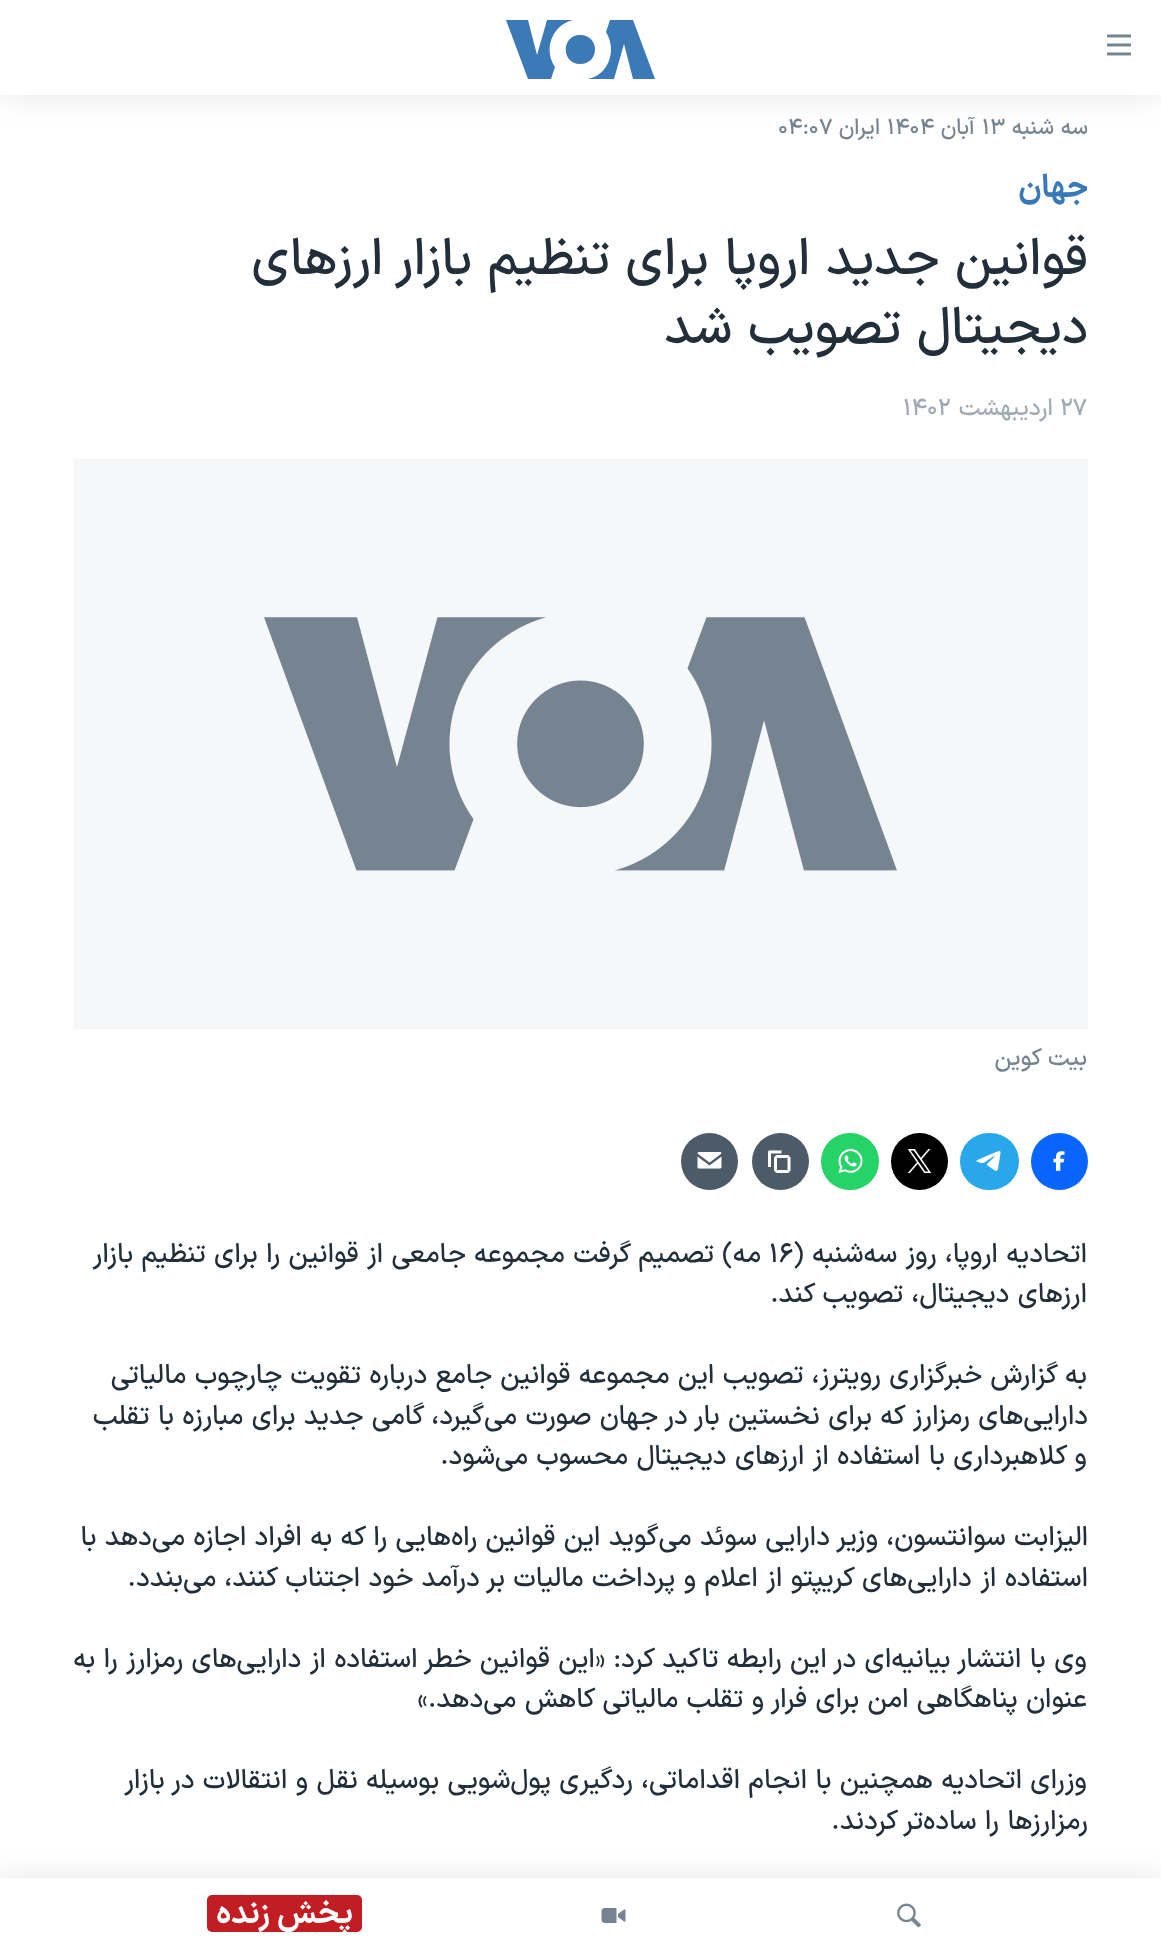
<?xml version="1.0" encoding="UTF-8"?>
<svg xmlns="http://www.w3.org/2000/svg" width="1161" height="1952">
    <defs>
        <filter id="blur1" x="-50%" y="-200%" width="200%" height="500%"><feGaussianBlur stdDeviation="15"/></filter>
    </defs>
    <rect width="100%" height="100%" fill="#FFFFFF"/>
    <text x="1088" y="134" font-family="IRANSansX" font-size="22" font-weight="500" direction="rtl" fill="#768492">سه شنبه</text>
    <text x="982" y="134" font-family="IRANSansX" font-size="22" font-weight="500" fill="#768492">۱۳</text>
    <text x="975" y="134" font-family="IRANSansX" font-size="22" font-weight="500" direction="rtl" fill="#768492">آبان</text>
    <text x="887" y="134" font-family="IRANSansX" font-size="22" font-weight="500" fill="#768492">۱۴۰۴</text>
    <text x="880" y="134" font-family="IRANSansX" font-size="22" font-weight="500" direction="rtl" fill="#768492">ایران</text>
    <text x="778" y="134" font-family="IRANSansX" font-size="22" font-weight="500" fill="#768492">۰۴:۰۷</text>
    <text x="1088" y="197" font-family="IRANSansX" font-size="32" font-weight="700" direction="rtl" fill="#3A79B7">جهان</text>
    <text font-family="IRANSansX" font-size="51.25" font-weight="500" direction="rtl" fill="#222F3A">
        <tspan x="1088" y="274">قوانین جدید اروپا برای تنظیم‌ بازار ارزهای</tspan>
        <tspan x="1088" y="343">دیجیتال تصویب شد</tspan>
    </text>
    <text x="1060" y="415" font-family="IRANSansX" font-size="23.5" font-weight="500" fill="#A1AAB4">۲۷</text>
    <text x="1053" y="415" font-family="IRANSansX" font-size="23.5" font-weight="500" direction="rtl" fill="#A1AAB4">اردیبهشت</text>
    <text x="903" y="415" font-family="IRANSansX" font-size="23.5" font-weight="500" fill="#A1AAB4">۱۴۰۲</text>
    <rect x="74" y="459" width="1014" height="570" fill="#F6F7F8"/>
    <image x="264" y="617" width="633" height="254" href="img_01.png"/>
    <text x="1087" y="1065" font-family="IRANSansX" font-size="23.5" font-weight="500" direction="rtl" fill="#768492">بیت کوین</text>
    <circle cx="1059.5" cy="1161.5" r="28.5" fill="#0866FF"/>
    <image x="1053" y="1151" width="12" height="20" href="img_02.png"/>
    <rect x="960" y="1133" width="59" height="57" rx="28.5" fill="#28A8EA"/>
    <image x="976" y="1151" width="25" height="20" href="img_03.png"/>
    <circle cx="919.5" cy="1161.5" r="28.5" fill="#000000"/>
    <image x="907" y="1149" width="25" height="24" href="img_04.png"/>
    <rect x="821" y="1133" width="58" height="57" rx="28.5" fill="#25D366"/>
    <image x="838" y="1149" width="25" height="24" href="img_05.png"/>
    <circle cx="780.5" cy="1161.5" r="28.5" fill="#4D5A67"/>
    <image x="768" y="1150" width="23" height="23" href="img_06.png"/>
    <circle cx="709.5" cy="1161.5" r="28.5" fill="#4D5A67"/>
    <image x="697" y="1152" width="25" height="17" href="img_07.png"/>
    <text x="1087" y="1262" font-family="IRANSansX" font-size="27" font-weight="500" direction="rtl" fill="#222F3A">اتحادیه اروپا، روز سه‌شنبه (</text>
    <text x="769" y="1262" font-family="IRANSansX" font-size="27" font-weight="500" fill="#222F3A">۱۶</text>
    <text x="761" y="1262" font-family="IRANSansX" font-size="27" font-weight="500" direction="rtl" fill="#222F3A">مه) تصمیم گرفت مجموعه جامعی از قوانین را برای تنظیم بازار</text>
    <text x="1087" y="1302" font-family="IRANSansX" font-size="27" font-weight="500" direction="rtl" fill="#222F3A">ارزهای دیجیتال، تصویب کند.</text>
    <text x="1087" y="1383" font-family="IRANSansX" font-size="27" font-weight="500" direction="rtl" fill="#222F3A">به گزارش خبرگزاری رویترز، تصویب این مجموعه قوانین جامع درباره تقویت چارچوب مالیاتی</text>
    <text x="1088" y="1424" font-family="IRANSansX" font-size="27" font-weight="500" direction="rtl" fill="#222F3A">دارایی‌های رمزارز که برای نخستین بار در جهان صورت می‌گیرد، گامی جدید برای مبارزه با تقلب</text>
    <text x="1087" y="1464" font-family="IRANSansX" font-size="27" font-weight="500" direction="rtl" fill="#222F3A">و کلاهبرداری با استفاده از ارزهای دیجیتال محسوب می‌شود.</text>
    <text font-family="IRANSansX" font-size="27" font-weight="500" direction="rtl" fill="#222F3A">
        <tspan x="1088" y="1545">الیزابت سوانتسون، وزیر دارایی سوئد می‌گوید این قوانین راه‌هایی را که به افراد اجازه می‌دهد با</tspan>
        <tspan x="1088" y="1586">استفاده از دارایی‌های کریپتو از اعلام و پرداخت مالیات بر درآمد خود اجتناب کنند، می‌بندد.</tspan>
    </text>
    <text font-family="IRANSansX" font-size="27" font-weight="500" direction="rtl" fill="#222F3A">
        <tspan x="1087" y="1667">وی با انتشار بیانیه‌ای در این رابطه تاکید کرد: «این قوانین خطر استفاده از دارایی‌های رمزارز را به</tspan>
        <tspan x="1087" y="1707">عنوان پناهگاهی امن برای فرار و تقلب مالیاتی کاهش می‌دهد.»</tspan>
    </text>
    <text x="1087" y="1788" font-family="IRANSansX" font-size="27" font-weight="500" direction="rtl" fill="#222F3A">وزرای اتحادیه همچنین با انجام اقداماتی، ردگیری پول‌شویی بوسیله نقل و انتقالات در بازار</text>
    <text x="1088" y="1829" font-family="IRANSansX" font-size="27" font-weight="500" direction="rtl" fill="#222F3A">رمز‌ارزها را ساده‌تر کردند.</text>
    <rect x="0" y="0" width="1161" height="95" fill="#000000" fill-opacity="0.1" filter="url(#blur1)"/>
    <rect x="0" y="0" width="1161" height="95" fill="#FFFFFF"/>
    <image x="1107" y="34" width="24" height="22" href="img_08.png"/>
    <path d="M 555 67 L 551 79 H 528 L 506 20 H 528 L 537 55 L 547 20 H 573 C 552 25 543 50 555 67 Z M 580 35 C 561 35 561 64 580 64 C 600 64 600 35 580 35 Z M 611 49 C 611 64 602 76 588 79 H 614 L 624 44 L 633 79 H 655 L 633 20 H 610 L 606 32 C 609 37 611 43 611 49 Z" fill="#3B79B7"/>
    <rect x="0" y="1878" width="1161" height="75" fill="#000000" fill-opacity="0.1" filter="url(#blur1)"/>
    <rect x="0" y="1878" width="1161" height="74" fill="#FFFFFF"/>
    <image x="897" y="1903" width="24" height="25" href="img_09.png"/>
    <image x="601" y="1908" width="25" height="15" href="img_10.png"/>
    <rect x="207" y="1895" width="155" height="37" rx="5" fill="#C11D22"/>
    <text x="353" y="1923" font-family="IRANSansX" font-size="31.5" font-weight="700" direction="rtl" fill="#FFFFFF">پخش زنده</text>
</svg>
